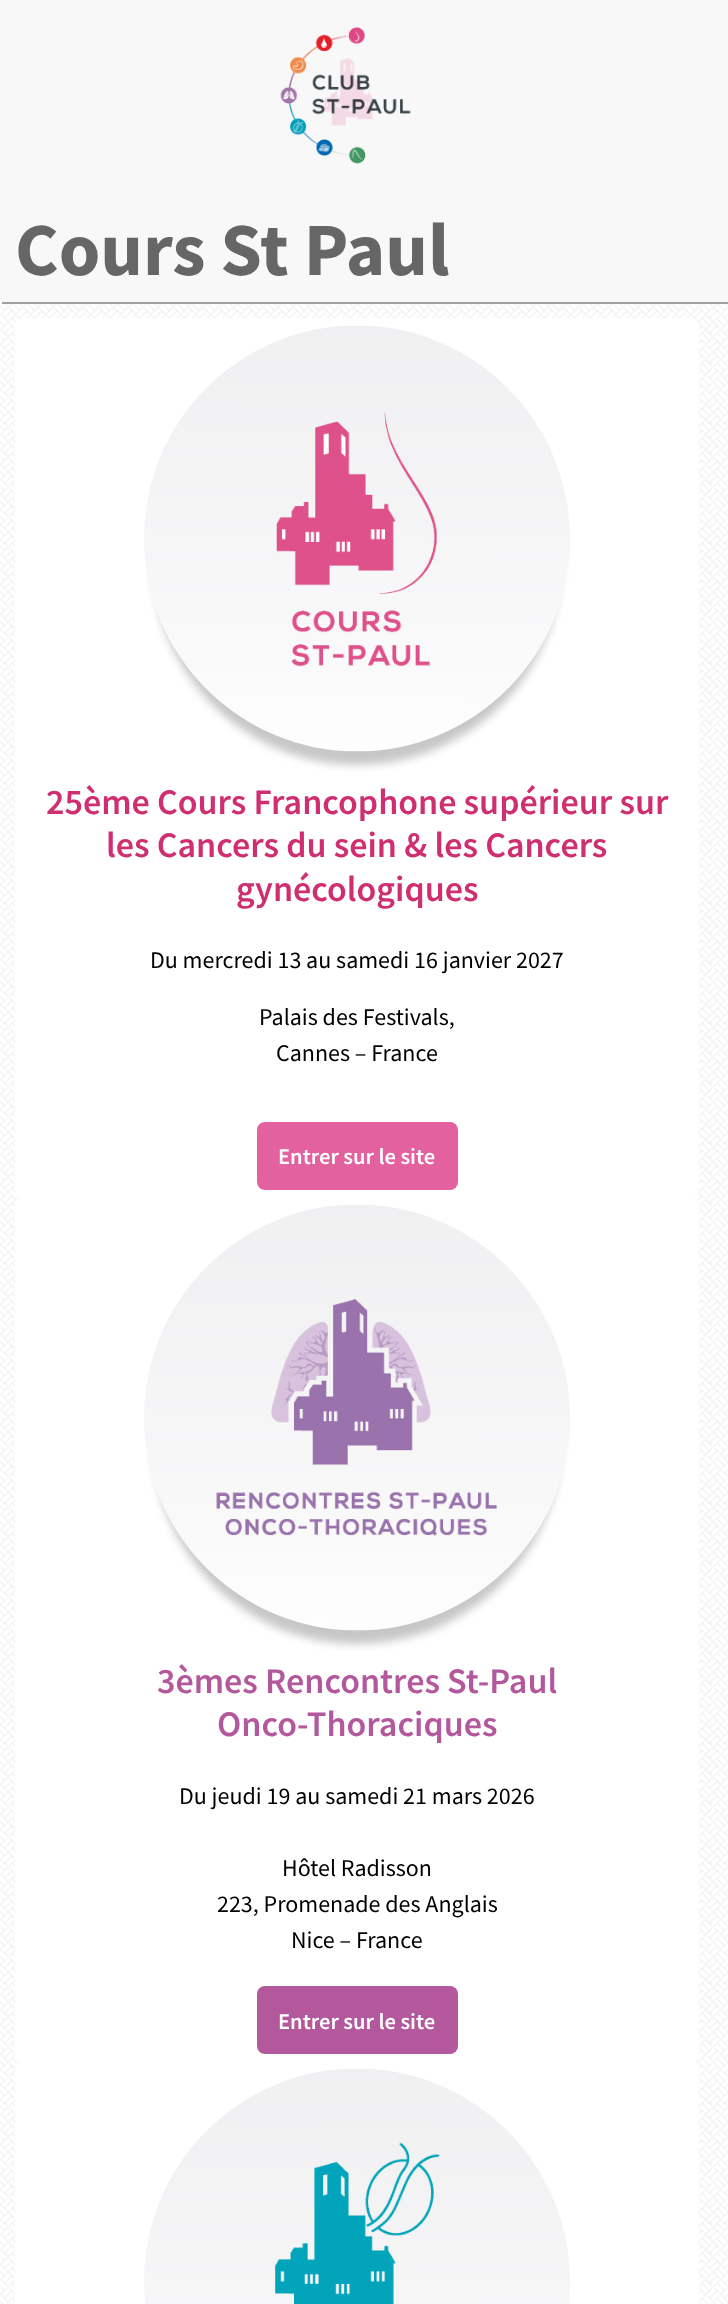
<?xml version="1.0" encoding="UTF-8"?>
<svg xmlns="http://www.w3.org/2000/svg" width="728" height="2304">
    <defs>
        <filter id="blur1" x="-50%" y="-200%" width="200%" height="500%"><feGaussianBlur stdDeviation="4"/></filter>
    </defs>
    <rect width="100%" height="100%" fill="#FFFFFF"/>
    <rect x="0" y="0" width="728" height="302" fill="#F8F8F8"/>
    <image x="280" y="27" width="131" height="137" href="img_01.png"/>
    <text x="15" y="275" font-family="Source Sans Pro" font-size="75" font-weight="700" fill="#666666">Cours St Paul</text>
    <image x="0" y="302" width="728" height="2002" href="img_02.png"/>
    <rect x="2" y="302" width="726" height="2" fill="#A0A0A0"/>
    <rect x="15" y="318" width="684" height="879" rx="8" fill="#FFFFFF"/>
    <rect x="153" y="357" width="408" height="408" rx="204" fill="#000000" fill-opacity="0.22" filter="url(#blur1)"/>
    <image x="144" y="326" width="426" height="426" href="img_03.png"/>
    <text x="46" y="814" font-family="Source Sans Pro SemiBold" font-size="36" font-weight="600" fill="#CF2E71">25ème Cours Francophone supérieur sur</text>
    <text x="106" y="857" font-family="Source Sans Pro SemiBold" font-size="36" font-weight="600" fill="#CF2E71">les Cancers du sein &amp; les Cancers</text>
    <text x="236" y="901" font-family="Source Sans Pro SemiBold" font-size="36" font-weight="600" fill="#CF2E71">gynécologiques</text>
    <text x="150" y="968" font-family="Source Sans Pro" font-size="24" fill="#000000">Du mercredi 13 au samedi 16 janvier 2027</text>
    <text x="259" y="1025" font-family="Source Sans Pro" font-size="24" fill="#000000">Palais des Festivals,</text>
    <text x="276" y="1061" font-family="Source Sans Pro" font-size="24" fill="#000000">Cannes – France</text>
    <rect x="257" y="1122" width="201" height="68" rx="8" fill="#E3619E"/>
    <text x="278" y="1164" font-family="Source Sans Pro SemiBold" font-size="22.5" font-weight="600" fill="#FFFFFF">Entrer sur le site</text>
    <rect x="15" y="1197" width="684" height="864" rx="8" fill="#FFFFFF"/>
    <rect x="153" y="1236" width="408" height="408" rx="204" fill="#000000" fill-opacity="0.22" filter="url(#blur1)"/>
    <image x="144" y="1205" width="426" height="426" href="img_04.png"/>
    <text x="157" y="1693" font-family="Source Sans Pro SemiBold" font-size="36" font-weight="600" fill="#B3589D">3èmes Rencontres St-Paul</text>
    <text x="217" y="1736" font-family="Source Sans Pro SemiBold" font-size="36" font-weight="600" fill="#B3589D">Onco-Thoraciques</text>
    <text x="179" y="1804" font-family="Source Sans Pro" font-size="24" fill="#000000">Du jeudi 19 au samedi 21 mars 2026</text>
    <text x="282" y="1876" font-family="Source Sans Pro" font-size="24" fill="#000000">Hôtel Radisson</text>
    <text x="217" y="1912" font-family="Source Sans Pro" font-size="24" fill="#000000">223, Promenade des Anglais</text>
    <text x="291" y="1948" font-family="Source Sans Pro" font-size="24" fill="#000000">Nice – France</text>
    <rect x="257" y="1986" width="201" height="68" rx="8" fill="#B3589D"/>
    <text x="278" y="2029" font-family="Source Sans Pro SemiBold" font-size="22.5" font-weight="600" fill="#FFFFFF">Entrer sur le site</text>
    <rect x="15" y="2061" width="684" height="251" rx="8" fill="#FFFFFF"/>
    <image x="144" y="2069" width="426" height="235" href="img_05.png"/>
</svg>
